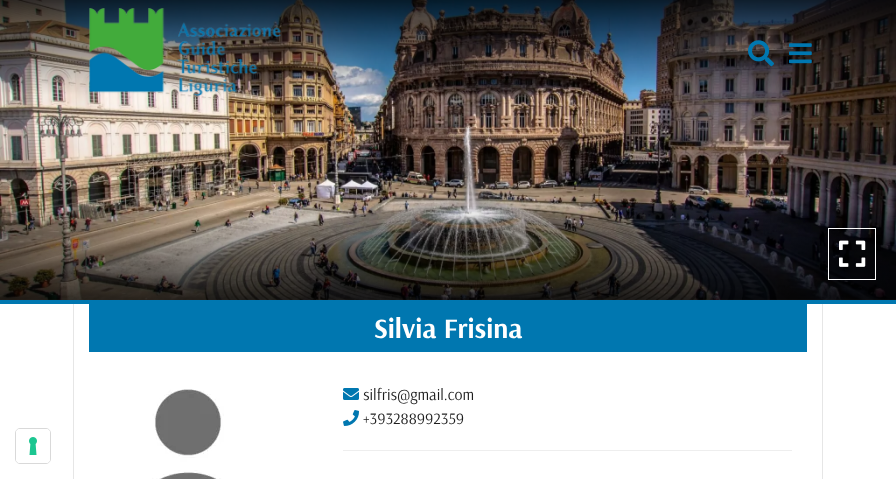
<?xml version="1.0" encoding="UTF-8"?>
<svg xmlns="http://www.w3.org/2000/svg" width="896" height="479">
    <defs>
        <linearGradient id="g1" gradientUnits="userSpaceOnUse" x1="448" y1="300" x2="448" y2="205"><stop offset="0" stop-color="#000000" stop-opacity="0.8"/><stop offset="1" stop-color="#000000" stop-opacity="0"/></linearGradient>
    </defs>
    <rect width="100%" height="100%" fill="#FFFFFF"/>
    <rect x="0" y="300" width="896" height="4" fill="#0077B0"/>
    <image x="0" y="0" width="896" height="300" href="img_01.png"/>
    <rect x="0" y="208" width="896" height="92" fill="url(#g1)"/>
    <rect x="828.5" y="228.5" width="47" height="51" fill="none" stroke="#FFFFFF"/>
    <image x="839" y="240" width="27" height="27" href="img_02.png"/>
    <image x="89" y="8" width="192" height="89" href="img_03.png"/>
    <image x="748" y="40" width="26" height="27" href="img_04.png"/>
    <image x="789" y="43" width="23" height="21" href="img_05.png"/>
    <path d="M 823 304 V 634 L 822 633 V 304 Z" fill="#E6E6E6"/>
    <path d="M 73 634 V 304 H 74 V 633 Z" fill="#E6E6E6"/>
    <rect x="89" y="304" width="718" height="48" fill="#0077B0"/>
    <text x="374" y="338" font-family="Arsenal" font-size="28" font-weight="700" fill="#FFFFFF">Silvia Frisina</text>
    <image x="152" y="389" width="72" height="90" href="img_06.png"/>
    <image x="343" y="388" width="16" height="12" href="img_07.png"/>
    <text x="363" y="400" font-family="Arsenal" font-size="16" fill="#1D1D1D">silfris@gmail.com</text>
    <image x="343" y="410" width="16" height="16" href="img_08.png"/>
    <text x="363" y="424" font-family="Arsenal" font-size="16" fill="#1D1D1D">+393288992359</text>
    <rect x="343" y="450" width="449" height="1" fill="#EEEEEE"/>
    <rect x="15.5" y="428.5" width="35" height="35" rx="4.5" fill="none" stroke="#D9D9D9"/>
    <rect x="16" y="429" width="34" height="34" rx="4" fill="#FFFFFF"/>
    <image x="29" y="437" width="8" height="18" href="img_09.png"/>
</svg>
